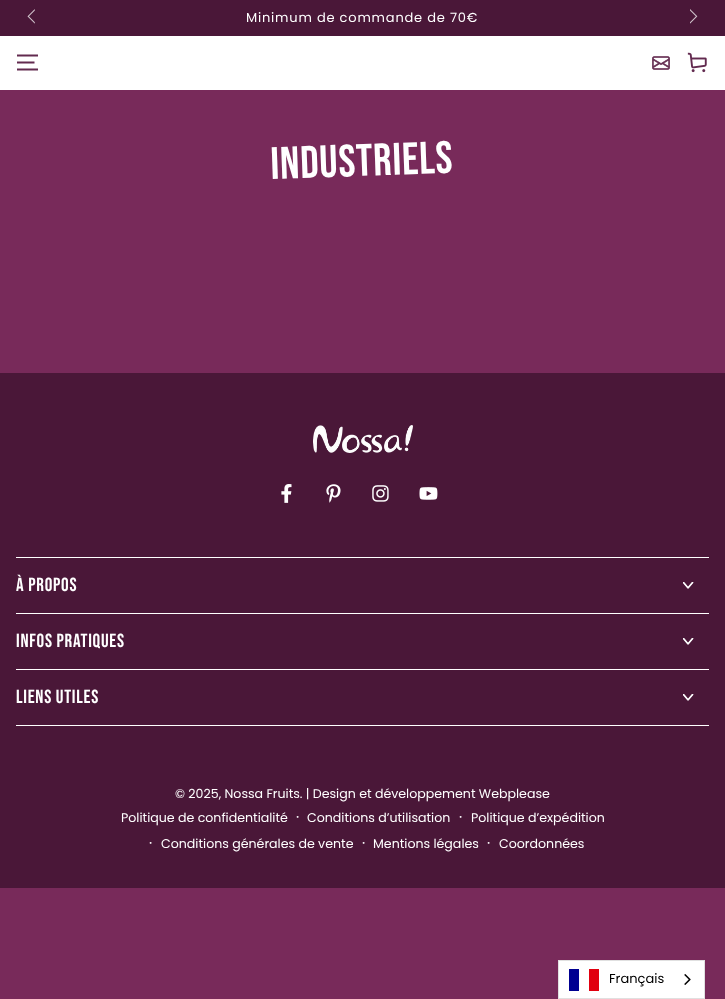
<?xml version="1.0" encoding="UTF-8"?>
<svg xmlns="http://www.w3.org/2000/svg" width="725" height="999">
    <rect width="100%" height="100%" fill="#782A5A"/>
    <rect x="0" y="0" width="725" height="36" fill="#4A1738"/>
    <image x="27" y="9" width="8" height="15" href="img_01.png"/>
    <image x="690" y="9" width="8" height="15" href="img_02.png"/>
    <text x="246" y="22" font-family="Poppins" font-size="13" letter-spacing="0.8" fill="#FFFFFF">Minimum de commande de 70€</text>
    <rect x="0" y="36" width="725" height="54" fill="#FFFFFF"/>
    <path d="M 17 69.5 H 38 M 17 62.5 H 34.5 M 17 55.5 H 38" fill="none" stroke="#622A4F" stroke-width="2"/>
    <image x="652" y="56" width="18" height="14" href="img_03.png"/>
    <image x="687" y="52" width="20" height="21" href="img_04.png"/>
    <text x="271" y="179" transform="rotate(-2 271 179)" font-family="Bebas Neue" font-size="45.5" letter-spacing="0.75" fill="#FFFFFF">INDUSTRIELS</text>
    <rect x="0" y="373" width="725" height="515" fill="#4A1738"/>
    <rect x="16" y="557" width="693" height="1" fill="#FFFFFF"/>
    <image x="313" y="425" width="100" height="28" href="img_05.png"/>
    <image x="281" y="484" width="11" height="19" href="img_06.png"/>
    <image x="326" y="484" width="15" height="19" href="img_07.png"/>
    <image x="372" y="485" width="17" height="17" href="img_08.png"/>
    <image x="419" y="487" width="19" height="13" href="img_09.png"/>
    <rect x="16" y="613" width="693" height="1" fill="#FFFFFF"/>
    <text x="16" y="591" font-family="Bebas Neue" font-size="19" letter-spacing="0.75" fill="#FFFFFF">À PROPOS</text>
    <image x="683" y="582" width="11" height="7" href="img_10.png"/>
    <rect x="16" y="669" width="693" height="1" fill="#FFFFFF"/>
    <text x="16" y="647" font-family="Bebas Neue" font-size="19" letter-spacing="0.75" fill="#FFFFFF">INFOS PRATIQUES</text>
    <image x="683" y="638" width="11" height="7" href="img_10.png"/>
    <rect x="16" y="725" width="693" height="1" fill="#FFFFFF"/>
    <text x="16" y="703" font-family="Bebas Neue" font-size="19" letter-spacing="0.75" fill="#FFFFFF">LIENS UTILES</text>
    <image x="683" y="694" width="11" height="7" href="img_10.png"/>
    <text x="175" y="798" font-family="Poppins" font-size="12.6" fill="#FFFFFF">© 2025, Nossa Fruits. | Design et développement Webplease</text>
    <text x="121" y="822" font-family="Poppins" font-size="12.6" fill="#FFFFFF">Politique de confidentialité</text>
    <text x="296" y="822" font-family="Poppins" font-size="15" fill="#FFFFFF">·</text>
    <text x="307" y="822" font-family="Poppins" font-size="12.6" fill="#FFFFFF">Conditions d’utilisation</text>
    <text x="459" y="822" font-family="Poppins" font-size="15" fill="#FFFFFF">·</text>
    <text x="471" y="822" font-family="Poppins" font-size="12.6" fill="#FFFFFF">Politique d’expédition</text>
    <text x="149" y="848" font-family="Poppins" font-size="15" fill="#FFFFFF">·</text>
    <text x="161" y="848" font-family="Poppins" font-size="12.6" fill="#FFFFFF">Conditions générales de vente</text>
    <text x="362" y="848" font-family="Poppins" font-size="15" fill="#FFFFFF">·</text>
    <text x="373" y="848" font-family="Poppins" font-size="12.6" fill="#FFFFFF">Mentions légales</text>
    <text x="487" y="848" font-family="Poppins" font-size="15" fill="#FFFFFF">·</text>
    <text x="499" y="848" font-family="Poppins" font-size="12.6" fill="#FFFFFF">Coordonnées</text>
    <rect x="558.5" y="960.5" width="146" height="38" fill="#FFFFFF" stroke="#E0E0E0"/>
    <rect x="569" y="969" width="10" height="22" fill="#000091"/>
    <rect x="589" y="969" width="10" height="22" fill="#E1000F"/>
    <text x="609" y="983" font-family="Poppins" font-size="13" fill="#000000">Français</text>
    <image x="684" y="974" width="7" height="11" href="img_11.png"/>
</svg>
